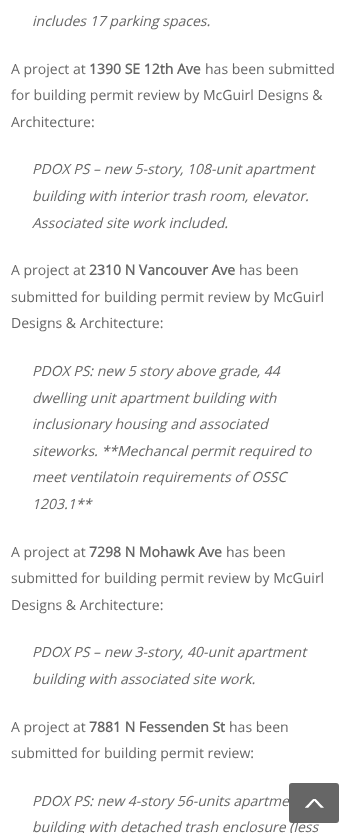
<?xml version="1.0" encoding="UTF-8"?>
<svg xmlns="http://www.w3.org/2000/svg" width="359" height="833">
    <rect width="100%" height="100%" fill="#FFFFFF"/>
    <text x="32" y="26" font-family="Open Sans" font-size="14" font-style="italic" fill="#666666">includes 17 parking spaces.</text>
    <text x="11" y="74" font-family="Open Sans" font-size="14" fill="#666666">A project at</text>
    <text x="89" y="74" font-family="Open Sans" font-size="14" font-weight="700" fill="#666666">1390 SE 12th Ave</text>
    <text x="205" y="74" font-family="Open Sans" font-size="14" fill="#666666">has been submitted</text>
    <text font-family="Open Sans" font-size="14" fill="#666666">
        <tspan x="11" y="100">for building permit review by McGuirl Designs &amp;</tspan>
        <tspan x="11" y="127">Architecture:</tspan>
    </text>
    <text font-family="Open Sans" font-size="14" font-style="italic" fill="#666666">
        <tspan x="32" y="174">PDOX PS – new 5-story, 108-unit apartment</tspan>
        <tspan x="32" y="201">building with interior trash room, elevator.</tspan>
        <tspan x="32" y="228">Associated site work included.</tspan>
    </text>
    <text x="11" y="275" font-family="Open Sans" font-size="14" fill="#666666">A project at</text>
    <text x="89" y="275" font-family="Open Sans" font-size="14" font-weight="700" fill="#666666">2310 N Vancouver Ave</text>
    <text x="239" y="275" font-family="Open Sans" font-size="14" fill="#666666">has been</text>
    <text font-family="Open Sans" font-size="14" fill="#666666">
        <tspan x="11" y="302">submitted for building permit review by McGuirl</tspan>
        <tspan x="11" y="328">Designs &amp; Architecture:</tspan>
    </text>
    <text font-family="Open Sans" font-size="14" font-style="italic" fill="#666666">
        <tspan x="32" y="376">PDOX PS: new 5 story above grade, 44</tspan>
        <tspan x="32" y="403">dwelling unit apartment building with</tspan>
        <tspan x="32" y="429">inclusionary housing and associated</tspan>
        <tspan x="32" y="456">siteworks. **Mechancal permit required to</tspan>
        <tspan x="32" y="482">meet ventilatoin requirements of OSSC</tspan>
        <tspan x="32" y="509">1203.1**</tspan>
    </text>
    <text x="11" y="557" font-family="Open Sans" font-size="14" fill="#666666">A project at</text>
    <text x="89" y="557" font-family="Open Sans" font-size="14" font-weight="700" fill="#666666">7298 N Mohawk Ave</text>
    <text x="226" y="557" font-family="Open Sans" font-size="14" fill="#666666">has been</text>
    <text font-family="Open Sans" font-size="14" fill="#666666">
        <tspan x="11" y="583">submitted for building permit review by McGuirl</tspan>
        <tspan x="11" y="610">Designs &amp; Architecture:</tspan>
    </text>
    <text font-family="Open Sans" font-size="14" font-style="italic" fill="#666666">
        <tspan x="32" y="657">PDOX PS – new 3-story, 40-unit apartment</tspan>
        <tspan x="32" y="684">building with associated site work.</tspan>
    </text>
    <text x="11" y="732" font-family="Open Sans" font-size="14" fill="#666666">A project at</text>
    <text x="89" y="732" font-family="Open Sans" font-size="14" font-weight="700" fill="#666666">7881 N Fessenden St</text>
    <text x="229" y="732" font-family="Open Sans" font-size="14" fill="#666666">has been</text>
    <text x="11" y="758" font-family="Open Sans" font-size="14" fill="#666666">submitted for building permit review:</text>
    <text font-family="Open Sans" font-size="14" font-style="italic" fill="#666666">
        <tspan x="32" y="806">PDOX PS: new 4-story 56-units apartme</tspan>
        <tspan x="32" y="832">building with detached trash enclosure (less</tspan>
    </text>
    <rect x="289" y="783" width="50" height="40" rx="3" fill="#666666"/>
    <image x="305" y="799" width="19" height="9" href="img_01.png"/>
</svg>
